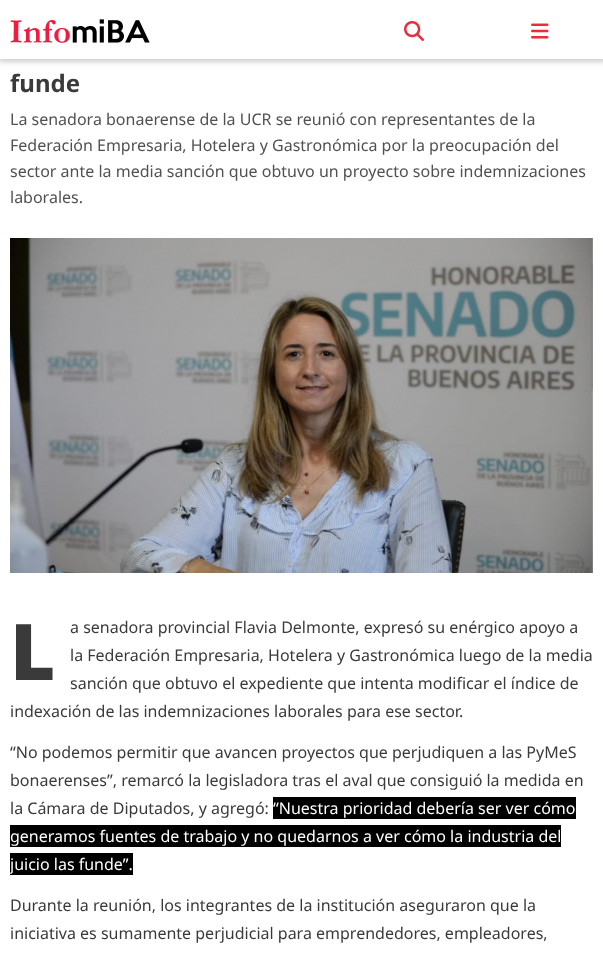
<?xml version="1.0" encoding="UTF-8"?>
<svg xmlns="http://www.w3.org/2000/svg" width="603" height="955">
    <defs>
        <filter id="blur1" x="-50%" y="-200%" width="200%" height="500%"><feGaussianBlur stdDeviation="2.5"/></filter>
    </defs>
    <rect width="100%" height="100%" fill="#FFFFFF"/>
    <rect x="-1" y="-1" width="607" height="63" fill="#848484" fill-opacity="0.4" filter="url(#blur1)"/>
    <rect x="0" y="0" width="603" height="59" fill="#FFFFFF"/>
    <image x="10" y="19" width="140" height="24" href="img_01.png"/>
    <image x="404" y="21" width="20" height="20" href="img_02.png"/>
    <image x="531" y="23" width="18" height="16" href="img_03.png"/>
    <text x="10" y="92" font-family="Noto Sans" font-size="24" font-weight="700" fill="#3A3A3A">funde</text>
    <text font-family="Noto Sans" font-size="16" fill="#515151">
        <tspan x="10" y="125">La senadora bonaerense de la UCR se reunió con representantes de la</tspan>
        <tspan x="10" y="151">Federación Empresaria, Hotelera y Gastronómica por la preocupación del</tspan>
        <tspan x="10" y="177">sector ante la media sanción que obtuvo un proyecto sobre indemnizaciones</tspan>
        <tspan x="10" y="203">laborales.</tspan>
    </text>
    <image x="10" y="238" width="583" height="335" href="img_04.png"/>
    <text x="10" y="680" font-family="Noto Sans" font-size="78" font-weight="900" fill="#3A3A3A">L</text>
    <text font-family="Noto Sans" font-size="16" fill="#3A3A3A">
        <tspan x="70" y="633">a senadora provincial Flavia Delmonte, expresó su enérgico apoyo a</tspan>
        <tspan x="70" y="661">la Federación Empresaria, Hotelera y Gastronómica luego de la media</tspan>
        <tspan x="70" y="689">sanción que obtuvo el expediente que intenta modificar el índice de</tspan>
    </text>
    <text x="10" y="717" font-family="Noto Sans" font-size="16" fill="#3A3A3A">indexación de las indemnizaciones laborales para ese sector.</text>
    <text font-family="Noto Sans" font-size="16" fill="#3A3A3A">
        <tspan x="10" y="758">“No podemos permitir que avancen proyectos que perjudiquen a las PyMeS</tspan>
        <tspan x="10" y="786">bonaerenses”, remarcó la legisladora tras el aval que consiguió la medida en</tspan>
        <tspan x="10" y="814">la Cámara de Diputados, y agregó:</tspan>
    </text>
    <rect x="273" y="797" width="303" height="22" fill="#000000"/>
    <text x="273" y="814" font-family="Noto Sans" font-size="16" fill="#FFFFFF">“Nuestra prioridad debería ser ver cómo</text>
    <rect x="10" y="825" width="551" height="22" fill="#000000"/>
    <text x="10" y="842" font-family="Noto Sans" font-size="16" fill="#FFFFFF">generamos fuentes de trabajo y no quedarnos a ver cómo la industria del</text>
    <rect x="10" y="853" width="123" height="22" fill="#000000"/>
    <text x="10" y="870" font-family="Noto Sans" font-size="16" fill="#FFFFFF">juicio las funde”.</text>
    <text font-family="Noto Sans" font-size="16" fill="#3A3A3A">
        <tspan x="10" y="911">Durante la reunión, los integrantes de la institución aseguraron que la</tspan>
        <tspan x="10" y="939">iniciativa es sumamente perjudicial para emprendedores, empleadores,</tspan>
    </text>
</svg>
